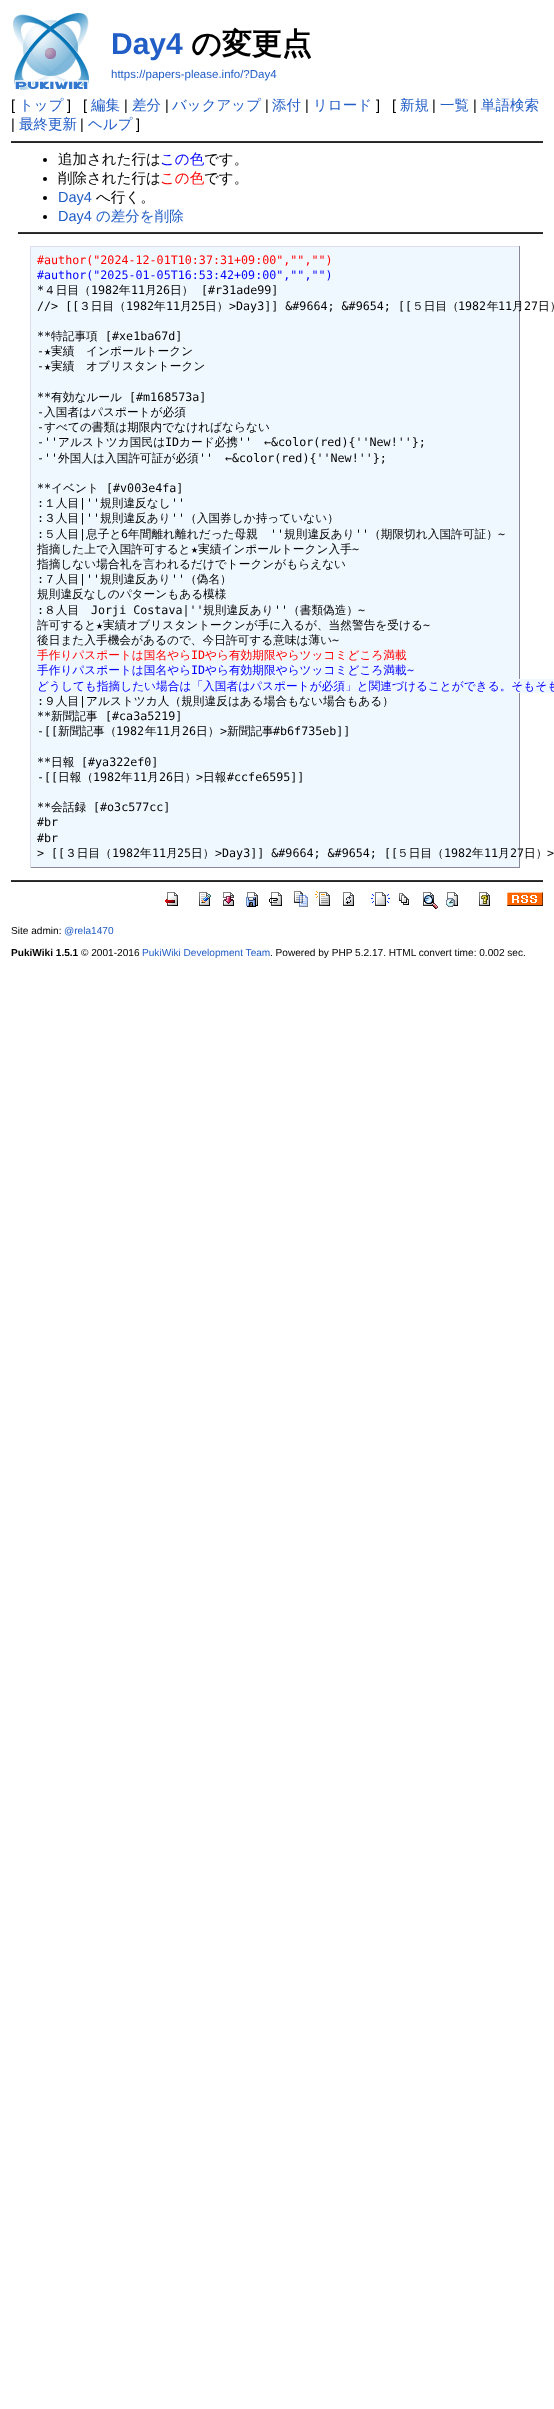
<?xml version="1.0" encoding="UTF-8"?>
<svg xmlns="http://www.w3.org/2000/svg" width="554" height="2409">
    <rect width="100%" height="100%" fill="#FFFFFF"/>
    <image x="13" y="13" width="76" height="77" href="img_01.png"/>
    <text x="111" y="54" font-family="Liberation Sans" font-size="30" font-weight="700" fill="#215DC6">Day4</text>
    <text x="191" y="54" font-family="WenQuanYi Zen Hei" font-size="30" font-weight="700" fill="#000000">の変更点</text>
    <text x="111" y="78" font-family="Liberation Sans" font-size="11.5" fill="#215DC6">https://papers-please.info/?Day4</text>
    <text x="11" y="110" font-family="Liberation Sans" font-size="14.5" fill="#000000">[</text>
    <text x="19" y="110" font-family="WenQuanYi Zen Hei" font-size="14.5" font-weight="500" fill="#215DC6">トップ</text>
    <text x="67" y="110" font-family="Liberation Sans" font-size="14.5" fill="#000000">]</text>
    <text x="83" y="110" font-family="Liberation Sans" font-size="14.5" fill="#000000">[</text>
    <text x="91" y="110" font-family="WenQuanYi Zen Hei" font-size="14.5" font-weight="500" fill="#215DC6">編集</text>
    <text x="124" y="110" font-family="Liberation Sans" font-size="14.5" fill="#000000">|</text>
    <text x="132" y="110" font-family="WenQuanYi Zen Hei" font-size="14.5" font-weight="500" fill="#215DC6">差分</text>
    <text x="165" y="110" font-family="Liberation Sans" font-size="14.5" fill="#000000">|</text>
    <text x="172" y="110" font-family="WenQuanYi Zen Hei" font-size="14.5" font-weight="500" fill="#215DC6">バックアップ</text>
    <text x="265" y="110" font-family="Liberation Sans" font-size="14.5" fill="#000000">|</text>
    <text x="272" y="110" font-family="WenQuanYi Zen Hei" font-size="14.5" font-weight="500" fill="#215DC6">添付</text>
    <text x="305" y="110" font-family="Liberation Sans" font-size="14.5" fill="#000000">|</text>
    <text x="313" y="110" font-family="WenQuanYi Zen Hei" font-size="14.5" font-weight="500" fill="#215DC6">リロード</text>
    <text x="376" y="110" font-family="Liberation Sans" font-size="14.5" fill="#000000">]</text>
    <text x="392" y="110" font-family="Liberation Sans" font-size="14.5" fill="#000000">[</text>
    <text x="400" y="110" font-family="WenQuanYi Zen Hei" font-size="14.5" font-weight="500" fill="#215DC6">新規</text>
    <text x="432" y="110" font-family="Liberation Sans" font-size="14.5" fill="#000000">|</text>
    <text x="440" y="110" font-family="WenQuanYi Zen Hei" font-size="14.5" font-weight="500" fill="#215DC6">一覧</text>
    <text x="473" y="110" font-family="Liberation Sans" font-size="14.5" fill="#000000">|</text>
    <text x="481" y="110" font-family="WenQuanYi Zen Hei" font-size="14.5" font-weight="500" fill="#215DC6">単語検索</text>
    <text x="11" y="129" font-family="Liberation Sans" font-size="14.5" fill="#000000">|</text>
    <text x="19" y="129" font-family="WenQuanYi Zen Hei" font-size="14.5" font-weight="500" fill="#215DC6">最終更新</text>
    <text x="80" y="129" font-family="Liberation Sans" font-size="14.5" fill="#000000">|</text>
    <text x="88" y="129" font-family="WenQuanYi Zen Hei" font-size="14.5" font-weight="500" fill="#215DC6">ヘルプ</text>
    <text x="136" y="129" font-family="Liberation Sans" font-size="14.5" fill="#000000">]</text>
    <rect x="11" y="141" width="532" height="1" fill="#333333"/>
    <rect x="11" y="142" width="532" height="1" fill="#222222"/>
    <circle cx="45" cy="160" r="2" fill="#000000"/>
    <text x="58" y="164" font-family="WenQuanYi Zen Hei" font-size="14.5" font-weight="500" fill="#000000">追加された行は</text>
    <text x="160" y="164" font-family="WenQuanYi Zen Hei" font-size="14.5" font-weight="500" fill="#0000FF">この色</text>
    <text x="204" y="164" font-family="WenQuanYi Zen Hei" font-size="14.5" font-weight="500" fill="#000000">です。</text>
    <circle cx="45" cy="179" r="2" fill="#000000"/>
    <text x="58" y="183" font-family="WenQuanYi Zen Hei" font-size="14.5" font-weight="500" fill="#000000">削除された行は</text>
    <text x="160" y="183" font-family="WenQuanYi Zen Hei" font-size="14.5" font-weight="500" fill="#FF0000">この色</text>
    <text x="204" y="183" font-family="WenQuanYi Zen Hei" font-size="14.5" font-weight="500" fill="#000000">です。</text>
    <circle cx="45" cy="198" r="2" fill="#000000"/>
    <text x="58" y="202" font-family="Liberation Sans" font-size="14.5" fill="#215DC6">Day4</text>
    <text x="96" y="202" font-family="WenQuanYi Zen Hei" font-size="14.5" font-weight="500" fill="#000000">へ行く。</text>
    <circle cx="45" cy="217" r="2" fill="#000000"/>
    <text x="58" y="221" font-family="Liberation Sans" font-size="14.5" fill="#215DC6">Day4</text>
    <text x="96" y="221" font-family="WenQuanYi Zen Hei" font-size="14.5" font-weight="500" fill="#215DC6">の差分を削除</text>
    <rect x="18" y="232" width="525" height="1" fill="#333333"/>
    <rect x="18" y="233" width="525" height="1" fill="#222222"/>
    <rect x="31" y="247" width="488" height="620" fill="#F0F8FF"/>
    <rect x="30" y="246" width="490" height="1" fill="#DDDDEE"/>
    <rect x="519" y="246" width="1" height="622" fill="#888899"/>
    <rect x="30" y="867" width="490" height="1" fill="#888899"/>
    <rect x="30" y="246" width="1" height="622" fill="#DDDDEE"/>
    <text x="37" y="264" font-family="DejaVu Sans Mono" font-size="11.7" fill="#FF0000">#author("2024-12-01T10:37:31+09:00","","")</text>
    <text x="37" y="279" font-family="DejaVu Sans Mono" font-size="11.7" fill="#0000FF">#author("2025-01-05T16:53:42+09:00","","")</text>
    <text x="37" y="294" font-family="DejaVu Sans Mono" font-size="11.7" fill="#000000">*</text>
    <text x="44" y="294" font-family="WenQuanYi Zen Hei" font-size="11.7" font-weight="500" fill="#000000">４日目（</text>
    <text x="91" y="294" font-family="DejaVu Sans Mono" font-size="11.7" fill="#000000">1982</text>
    <text x="119" y="294" font-family="WenQuanYi Zen Hei" font-size="11.7" font-weight="500" fill="#000000">年</text>
    <text x="131" y="294" font-family="DejaVu Sans Mono" font-size="11.7" fill="#000000">11</text>
    <text x="145" y="294" font-family="WenQuanYi Zen Hei" font-size="11.7" font-weight="500" fill="#000000">月</text>
    <text x="156" y="294" font-family="DejaVu Sans Mono" font-size="11.7" fill="#000000">26</text>
    <text x="170" y="294" font-family="WenQuanYi Zen Hei" font-size="11.7" font-weight="500" fill="#000000">日）</text>
    <text x="201" y="294" font-family="DejaVu Sans Mono" font-size="11.7" fill="#000000">[#r31ade99]</text>
    <text x="37" y="310" font-family="DejaVu Sans Mono" font-size="11.7" fill="#000000">//&gt; [[</text>
    <text x="79" y="310" font-family="WenQuanYi Zen Hei" font-size="11.7" font-weight="500" fill="#000000">３日目（</text>
    <text x="126" y="310" font-family="DejaVu Sans Mono" font-size="11.7" fill="#000000">1982</text>
    <text x="154" y="310" font-family="WenQuanYi Zen Hei" font-size="11.7" font-weight="500" fill="#000000">年</text>
    <text x="166" y="310" font-family="DejaVu Sans Mono" font-size="11.7" fill="#000000">11</text>
    <text x="180" y="310" font-family="WenQuanYi Zen Hei" font-size="11.7" font-weight="500" fill="#000000">月</text>
    <text x="191" y="310" font-family="DejaVu Sans Mono" font-size="11.7" fill="#000000">25</text>
    <text x="205" y="310" font-family="WenQuanYi Zen Hei" font-size="11.7" font-weight="500" fill="#000000">日）</text>
    <text x="229" y="310" font-family="DejaVu Sans Mono" font-size="11.7" fill="#000000">&gt;Day3]] &amp;#9664; &amp;#9654; [[</text>
    <text x="412" y="310" font-family="WenQuanYi Zen Hei" font-size="11.7" font-weight="500" fill="#000000">５日目（</text>
    <text x="458" y="310" font-family="DejaVu Sans Mono" font-size="11.7" fill="#000000">1982</text>
    <text x="487" y="310" font-family="WenQuanYi Zen Hei" font-size="11.7" font-weight="500" fill="#000000">年</text>
    <text x="498" y="310" font-family="DejaVu Sans Mono" font-size="11.7" fill="#000000">11</text>
    <text x="512" y="310" font-family="WenQuanYi Zen Hei" font-size="11.7" font-weight="500" fill="#000000">月</text>
    <text x="524" y="310" font-family="DejaVu Sans Mono" font-size="11.7" fill="#000000">27</text>
    <text x="538" y="310" font-family="WenQuanYi Zen Hei" font-size="11.7" font-weight="500" fill="#000000">日）</text>
    <text x="37" y="340" font-family="DejaVu Sans Mono" font-size="11.7" fill="#000000">**</text>
    <text x="51" y="340" font-family="WenQuanYi Zen Hei" font-size="11.7" font-weight="500" fill="#000000">特記事項</text>
    <text x="105" y="340" font-family="DejaVu Sans Mono" font-size="11.7" fill="#000000">[#xe1ba67d]</text>
    <text x="37" y="355" font-family="DejaVu Sans Mono" font-size="11.7" fill="#000000">-★</text>
    <text x="51" y="355" font-family="WenQuanYi Zen Hei" font-size="11.7" font-weight="500" fill="#000000">実績　インポールトークン</text>
    <text x="37" y="370" font-family="DejaVu Sans Mono" font-size="11.7" fill="#000000">-★</text>
    <text x="51" y="370" font-family="WenQuanYi Zen Hei" font-size="11.7" font-weight="500" fill="#000000">実績　オブリスタントークン</text>
    <text x="37" y="401" font-family="DejaVu Sans Mono" font-size="11.7" fill="#000000">**</text>
    <text x="51" y="401" font-family="WenQuanYi Zen Hei" font-size="11.7" font-weight="500" fill="#000000">有効なルール</text>
    <text x="129" y="401" font-family="DejaVu Sans Mono" font-size="11.7" fill="#000000">[#m168573a]</text>
    <text x="37" y="416" font-family="DejaVu Sans Mono" font-size="11.7" fill="#000000">-</text>
    <text x="44" y="416" font-family="WenQuanYi Zen Hei" font-size="11.7" font-weight="500" fill="#000000">入国者はパスポートが必須</text>
    <text x="37" y="431" font-family="DejaVu Sans Mono" font-size="11.7" fill="#000000">-</text>
    <text x="44" y="431" font-family="WenQuanYi Zen Hei" font-size="11.7" font-weight="500" fill="#000000">すべての書類は期限内でなければならない</text>
    <text x="37" y="446" font-family="DejaVu Sans Mono" font-size="11.7" fill="#000000">-''</text>
    <text x="58" y="446" font-family="WenQuanYi Zen Hei" font-size="11.7" font-weight="500" fill="#000000">アルストツカ国民は</text>
    <text x="165" y="446" font-family="DejaVu Sans Mono" font-size="11.7" fill="#000000">ID</text>
    <text x="179" y="446" font-family="WenQuanYi Zen Hei" font-size="11.7" font-weight="500" fill="#000000">カード必携</text>
    <text x="238" y="446" font-family="DejaVu Sans Mono" font-size="11.7" fill="#000000">''</text>
    <text x="264" y="446" font-family="DejaVu Sans Mono" font-size="11.7" fill="#000000">←&amp;color(red){''New!''};</text>
    <text x="37" y="462" font-family="DejaVu Sans Mono" font-size="11.7" fill="#000000">-''</text>
    <text x="58" y="462" font-family="WenQuanYi Zen Hei" font-size="11.7" font-weight="500" fill="#000000">外国人は入国許可証が必須</text>
    <text x="199" y="462" font-family="DejaVu Sans Mono" font-size="11.7" fill="#000000">''</text>
    <text x="225" y="462" font-family="DejaVu Sans Mono" font-size="11.7" fill="#000000">←&amp;color(red){''New!''};</text>
    <text x="37" y="492" font-family="DejaVu Sans Mono" font-size="11.7" fill="#000000">**</text>
    <text x="51" y="492" font-family="WenQuanYi Zen Hei" font-size="11.7" font-weight="500" fill="#000000">イベント</text>
    <text x="106" y="492" font-family="DejaVu Sans Mono" font-size="11.7" fill="#000000">[#v003e4fa]</text>
    <text x="37" y="507" font-family="DejaVu Sans Mono" font-size="11.7" fill="#000000">:</text>
    <text x="44" y="507" font-family="WenQuanYi Zen Hei" font-size="11.7" font-weight="500" fill="#000000">１人目</text>
    <text x="79" y="507" font-family="DejaVu Sans Mono" font-size="11.7" fill="#000000">|''</text>
    <text x="100" y="507" font-family="WenQuanYi Zen Hei" font-size="11.7" font-weight="500" fill="#000000">規則違反なし</text>
    <text x="171" y="507" font-family="DejaVu Sans Mono" font-size="11.7" fill="#000000">''</text>
    <text x="37" y="522" font-family="DejaVu Sans Mono" font-size="11.7" fill="#000000">:</text>
    <text x="44" y="522" font-family="WenQuanYi Zen Hei" font-size="11.7" font-weight="500" fill="#000000">３人目</text>
    <text x="79" y="522" font-family="DejaVu Sans Mono" font-size="11.7" fill="#000000">|''</text>
    <text x="100" y="522" font-family="WenQuanYi Zen Hei" font-size="11.7" font-weight="500" fill="#000000">規則違反あり</text>
    <text x="171" y="522" font-family="DejaVu Sans Mono" font-size="11.7" fill="#000000">''</text>
    <text x="185" y="522" font-family="WenQuanYi Zen Hei" font-size="11.7" font-weight="500" fill="#000000">（入国券しか持っていない）</text>
    <text x="37" y="538" font-family="DejaVu Sans Mono" font-size="11.7" fill="#000000">:</text>
    <text x="44" y="538" font-family="WenQuanYi Zen Hei" font-size="11.7" font-weight="500" fill="#000000">５人目</text>
    <text x="79" y="538" font-family="DejaVu Sans Mono" font-size="11.7" fill="#000000">|</text>
    <text x="86" y="538" font-family="WenQuanYi Zen Hei" font-size="11.7" font-weight="500" fill="#000000">息子と</text>
    <text x="121" y="538" font-family="DejaVu Sans Mono" font-size="11.7" fill="#000000">6</text>
    <text x="128" y="538" font-family="WenQuanYi Zen Hei" font-size="11.7" font-weight="500" fill="#000000">年間離れ離れだった母親</text>
    <text x="270" y="538" font-family="DejaVu Sans Mono" font-size="11.7" fill="#000000">''</text>
    <text x="284" y="538" font-family="WenQuanYi Zen Hei" font-size="11.7" font-weight="500" fill="#000000">規則違反あり</text>
    <text x="355" y="538" font-family="DejaVu Sans Mono" font-size="11.7" fill="#000000">''</text>
    <text x="369" y="538" font-family="WenQuanYi Zen Hei" font-size="11.7" font-weight="500" fill="#000000">（期限切れ入国許可証）</text>
    <text x="498" y="538" font-family="DejaVu Sans Mono" font-size="11.7" fill="#000000">~</text>
    <text x="37" y="553" font-family="WenQuanYi Zen Hei" font-size="11.7" font-weight="500" fill="#000000">指摘した上で入国許可すると</text>
    <text x="191" y="553" font-family="DejaVu Sans Mono" font-size="11.7" fill="#000000">★</text>
    <text x="198" y="553" font-family="WenQuanYi Zen Hei" font-size="11.7" font-weight="500" fill="#000000">実績インポールトークン入手</text>
    <text x="352" y="553" font-family="DejaVu Sans Mono" font-size="11.7" fill="#000000">~</text>
    <text x="37" y="568" font-family="WenQuanYi Zen Hei" font-size="11.7" font-weight="500" fill="#000000">指摘しない場合礼を言われるだけでトークンがもらえない</text>
    <text x="37" y="583" font-family="DejaVu Sans Mono" font-size="11.7" fill="#000000">:</text>
    <text x="44" y="583" font-family="WenQuanYi Zen Hei" font-size="11.7" font-weight="500" fill="#000000">７人目</text>
    <text x="79" y="583" font-family="DejaVu Sans Mono" font-size="11.7" fill="#000000">|''</text>
    <text x="100" y="583" font-family="WenQuanYi Zen Hei" font-size="11.7" font-weight="500" fill="#000000">規則違反あり</text>
    <text x="171" y="583" font-family="DejaVu Sans Mono" font-size="11.7" fill="#000000">''</text>
    <text x="185" y="583" font-family="WenQuanYi Zen Hei" font-size="11.7" font-weight="500" fill="#000000">（偽名）</text>
    <text x="37" y="598" font-family="WenQuanYi Zen Hei" font-size="11.7" font-weight="500" fill="#000000">規則違反なしのパターンもある模様</text>
    <text x="37" y="614" font-family="DejaVu Sans Mono" font-size="11.7" fill="#000000">:</text>
    <text x="44" y="614" font-family="WenQuanYi Zen Hei" font-size="11.7" font-weight="500" fill="#000000">８人目</text>
    <text x="91" y="614" font-family="DejaVu Sans Mono" font-size="11.7" fill="#000000">Jorji Costava|''</text>
    <text x="203" y="614" font-family="WenQuanYi Zen Hei" font-size="11.7" font-weight="500" fill="#000000">規則違反あり</text>
    <text x="274" y="614" font-family="DejaVu Sans Mono" font-size="11.7" fill="#000000">''</text>
    <text x="288" y="614" font-family="WenQuanYi Zen Hei" font-size="11.7" font-weight="500" fill="#000000">（書類偽造）</text>
    <text x="358" y="614" font-family="DejaVu Sans Mono" font-size="11.7" fill="#000000">~</text>
    <text x="37" y="629" font-family="WenQuanYi Zen Hei" font-size="11.7" font-weight="500" fill="#000000">許可すると</text>
    <text x="96" y="629" font-family="DejaVu Sans Mono" font-size="11.7" fill="#000000">★</text>
    <text x="103" y="629" font-family="WenQuanYi Zen Hei" font-size="11.7" font-weight="500" fill="#000000">実績オブリスタントークンが手に入るが、当然警告を受ける</text>
    <text x="423" y="629" font-family="DejaVu Sans Mono" font-size="11.7" fill="#000000">~</text>
    <text x="37" y="644" font-family="WenQuanYi Zen Hei" font-size="11.7" font-weight="500" fill="#000000">後日また入手機会があるので、今日許可する意味は薄い</text>
    <text x="332" y="644" font-family="DejaVu Sans Mono" font-size="11.7" fill="#000000">~</text>
    <text x="37" y="659" font-family="WenQuanYi Zen Hei" font-size="11.7" font-weight="500" fill="#FF0000">手作りパスポートは国名やら</text>
    <text x="191" y="659" font-family="DejaVu Sans Mono" font-size="11.7" fill="#FF0000">ID</text>
    <text x="205" y="659" font-family="WenQuanYi Zen Hei" font-size="11.7" font-weight="500" fill="#FF0000">やら有効期限やらツッコミどころ満載</text>
    <text x="37" y="674" font-family="WenQuanYi Zen Hei" font-size="11.7" font-weight="500" fill="#0000FF">手作りパスポートは国名やら</text>
    <text x="191" y="674" font-family="DejaVu Sans Mono" font-size="11.7" fill="#0000FF">ID</text>
    <text x="205" y="674" font-family="WenQuanYi Zen Hei" font-size="11.7" font-weight="500" fill="#0000FF">やら有効期限やらツッコミどころ満載</text>
    <text x="407" y="674" font-family="DejaVu Sans Mono" font-size="11.7" fill="#0000FF">~</text>
    <rect x="519" y="679" width="35" height="14" fill="#F0F8FF"/>
    <text x="37" y="690" font-family="WenQuanYi Zen Hei" font-size="11.7" font-weight="500" fill="#0000FF">どうしても指摘したい場合は「入国者はパスポートが必須」と関連づけることができる。そもそも</text>
    <text x="37" y="705" font-family="DejaVu Sans Mono" font-size="11.7" fill="#000000">:</text>
    <text x="44" y="705" font-family="WenQuanYi Zen Hei" font-size="11.7" font-weight="500" fill="#000000">９人目</text>
    <text x="79" y="705" font-family="DejaVu Sans Mono" font-size="11.7" fill="#000000">|</text>
    <text x="86" y="705" font-family="WenQuanYi Zen Hei" font-size="11.7" font-weight="500" fill="#000000">アルストツカ人（規則違反はある場合もない場合もある）</text>
    <text x="37" y="720" font-family="DejaVu Sans Mono" font-size="11.7" fill="#000000">**</text>
    <text x="51" y="720" font-family="WenQuanYi Zen Hei" font-size="11.7" font-weight="500" fill="#000000">新聞記事</text>
    <text x="105" y="720" font-family="DejaVu Sans Mono" font-size="11.7" fill="#000000">[#ca3a5219]</text>
    <text x="37" y="735" font-family="DejaVu Sans Mono" font-size="11.7" fill="#000000">-[[</text>
    <text x="58" y="735" font-family="WenQuanYi Zen Hei" font-size="11.7" font-weight="500" fill="#000000">新聞記事（</text>
    <text x="116" y="735" font-family="DejaVu Sans Mono" font-size="11.7" fill="#000000">1982</text>
    <text x="145" y="735" font-family="WenQuanYi Zen Hei" font-size="11.7" font-weight="500" fill="#000000">年</text>
    <text x="156" y="735" font-family="DejaVu Sans Mono" font-size="11.7" fill="#000000">11</text>
    <text x="170" y="735" font-family="WenQuanYi Zen Hei" font-size="11.7" font-weight="500" fill="#000000">月</text>
    <text x="182" y="735" font-family="DejaVu Sans Mono" font-size="11.7" fill="#000000">26</text>
    <text x="196" y="735" font-family="WenQuanYi Zen Hei" font-size="11.7" font-weight="500" fill="#000000">日）</text>
    <text x="220" y="735" font-family="DejaVu Sans Mono" font-size="11.7" fill="#000000">&gt;</text>
    <text x="227" y="735" font-family="WenQuanYi Zen Hei" font-size="11.7" font-weight="500" fill="#000000">新聞記事</text>
    <text x="273" y="735" font-family="DejaVu Sans Mono" font-size="11.7" fill="#000000">#b6f735eb]]</text>
    <text x="37" y="766" font-family="DejaVu Sans Mono" font-size="11.7" fill="#000000">**</text>
    <text x="51" y="766" font-family="WenQuanYi Zen Hei" font-size="11.7" font-weight="500" fill="#000000">日報</text>
    <text x="81" y="766" font-family="DejaVu Sans Mono" font-size="11.7" fill="#000000">[#ya322ef0]</text>
    <text x="37" y="781" font-family="DejaVu Sans Mono" font-size="11.7" fill="#000000">-[[</text>
    <text x="58" y="781" font-family="WenQuanYi Zen Hei" font-size="11.7" font-weight="500" fill="#000000">日報（</text>
    <text x="93" y="781" font-family="DejaVu Sans Mono" font-size="11.7" fill="#000000">1982</text>
    <text x="121" y="781" font-family="WenQuanYi Zen Hei" font-size="11.7" font-weight="500" fill="#000000">年</text>
    <text x="133" y="781" font-family="DejaVu Sans Mono" font-size="11.7" fill="#000000">11</text>
    <text x="147" y="781" font-family="WenQuanYi Zen Hei" font-size="11.7" font-weight="500" fill="#000000">月</text>
    <text x="159" y="781" font-family="DejaVu Sans Mono" font-size="11.7" fill="#000000">26</text>
    <text x="173" y="781" font-family="WenQuanYi Zen Hei" font-size="11.7" font-weight="500" fill="#000000">日）</text>
    <text x="196" y="781" font-family="DejaVu Sans Mono" font-size="11.7" fill="#000000">&gt;</text>
    <text x="203" y="781" font-family="WenQuanYi Zen Hei" font-size="11.7" font-weight="500" fill="#000000">日報</text>
    <text x="227" y="781" font-family="DejaVu Sans Mono" font-size="11.7" fill="#000000">#ccfe6595]]</text>
    <text x="37" y="811" font-family="DejaVu Sans Mono" font-size="11.7" fill="#000000">**</text>
    <text x="51" y="811" font-family="WenQuanYi Zen Hei" font-size="11.7" font-weight="500" fill="#000000">会話録</text>
    <text x="93" y="811" font-family="DejaVu Sans Mono" font-size="11.7" fill="#000000">[#o3c577cc]</text>
    <text font-family="DejaVu Sans Mono" font-size="11.7" fill="#000000">
        <tspan x="37" y="826">#br</tspan>
        <tspan x="37" y="842">#br</tspan>
        <tspan x="37" y="857">&gt; [[</tspan>
    </text>
    <text x="65" y="857" font-family="WenQuanYi Zen Hei" font-size="11.7" font-weight="500" fill="#000000">３日目（</text>
    <text x="112" y="857" font-family="DejaVu Sans Mono" font-size="11.7" fill="#000000">1982</text>
    <text x="140" y="857" font-family="WenQuanYi Zen Hei" font-size="11.7" font-weight="500" fill="#000000">年</text>
    <text x="152" y="857" font-family="DejaVu Sans Mono" font-size="11.7" fill="#000000">11</text>
    <text x="166" y="857" font-family="WenQuanYi Zen Hei" font-size="11.7" font-weight="500" fill="#000000">月</text>
    <text x="177" y="857" font-family="DejaVu Sans Mono" font-size="11.7" fill="#000000">25</text>
    <text x="191" y="857" font-family="WenQuanYi Zen Hei" font-size="11.7" font-weight="500" fill="#000000">日）</text>
    <text x="215" y="857" font-family="DejaVu Sans Mono" font-size="11.7" fill="#000000">&gt;Day3]] &amp;#9664; &amp;#9654; [[</text>
    <text x="397" y="857" font-family="WenQuanYi Zen Hei" font-size="11.7" font-weight="500" fill="#000000">５日目（</text>
    <text x="444" y="857" font-family="DejaVu Sans Mono" font-size="11.7" fill="#000000">1982</text>
    <text x="472" y="857" font-family="WenQuanYi Zen Hei" font-size="11.7" font-weight="500" fill="#000000">年</text>
    <text x="484" y="857" font-family="DejaVu Sans Mono" font-size="11.7" fill="#000000">11</text>
    <text x="498" y="857" font-family="WenQuanYi Zen Hei" font-size="11.7" font-weight="500" fill="#000000">月</text>
    <text x="510" y="857" font-family="DejaVu Sans Mono" font-size="11.7" fill="#000000">27</text>
    <text x="524" y="857" font-family="WenQuanYi Zen Hei" font-size="11.7" font-weight="500" fill="#000000">日）</text>
    <text x="547" y="857" font-family="DejaVu Sans Mono" font-size="11.7" fill="#000000">&gt;</text>
    <rect x="11" y="880" width="532" height="1" fill="#333333"/>
    <rect x="11" y="881" width="532" height="1" fill="#222222"/>
    <image x="165" y="892" width="13" height="14" href="img_02.png"/>
    <image x="199" y="892" width="12" height="14" href="img_03.png"/>
    <image x="223" y="892" width="11" height="14" href="img_04.png"/>
    <image x="246" y="892" width="12" height="15" href="img_05.png"/>
    <image x="269" y="892" width="13" height="14" href="img_06.png"/>
    <image x="294" y="891" width="14" height="16" href="img_07.png"/>
    <image x="315" y="891" width="15" height="15" href="img_08.png"/>
    <image x="343" y="892" width="11" height="14" href="img_09.png"/>
    <image x="371" y="892" width="19" height="14" href="img_10.png"/>
    <image x="399" y="893" width="10" height="12" href="img_11.png"/>
    <image x="423" y="892" width="15" height="17" href="img_12.png"/>
    <image x="446" y="892" width="12" height="15" href="img_13.png"/>
    <image x="479" y="892" width="11" height="14" href="img_14.png"/>
    <image x="507" y="892" width="36" height="14" href="img_15.png"/>
    <text x="11" y="934" font-family="Liberation Sans" font-size="10.1" fill="#000000">Site admin:</text>
    <text x="64" y="934" font-family="Liberation Sans" font-size="10.1" fill="#215DC6">@rela1470</text>
    <text x="11" y="956" font-family="Liberation Sans" font-size="10.1" font-weight="700" fill="#000000">PukiWiki 1.5.1</text>
    <text x="81" y="956" font-family="Liberation Sans" font-size="10.1" fill="#000000">© 2001-2016</text>
    <text x="142" y="956" font-family="Liberation Sans" font-size="10.1" fill="#215DC6">PukiWiki Development Team</text>
    <text x="270" y="956" font-family="Liberation Sans" font-size="10.1" fill="#000000">. Powered by PHP 5.2.17. HTML convert time: 0.002 sec.</text>
</svg>
